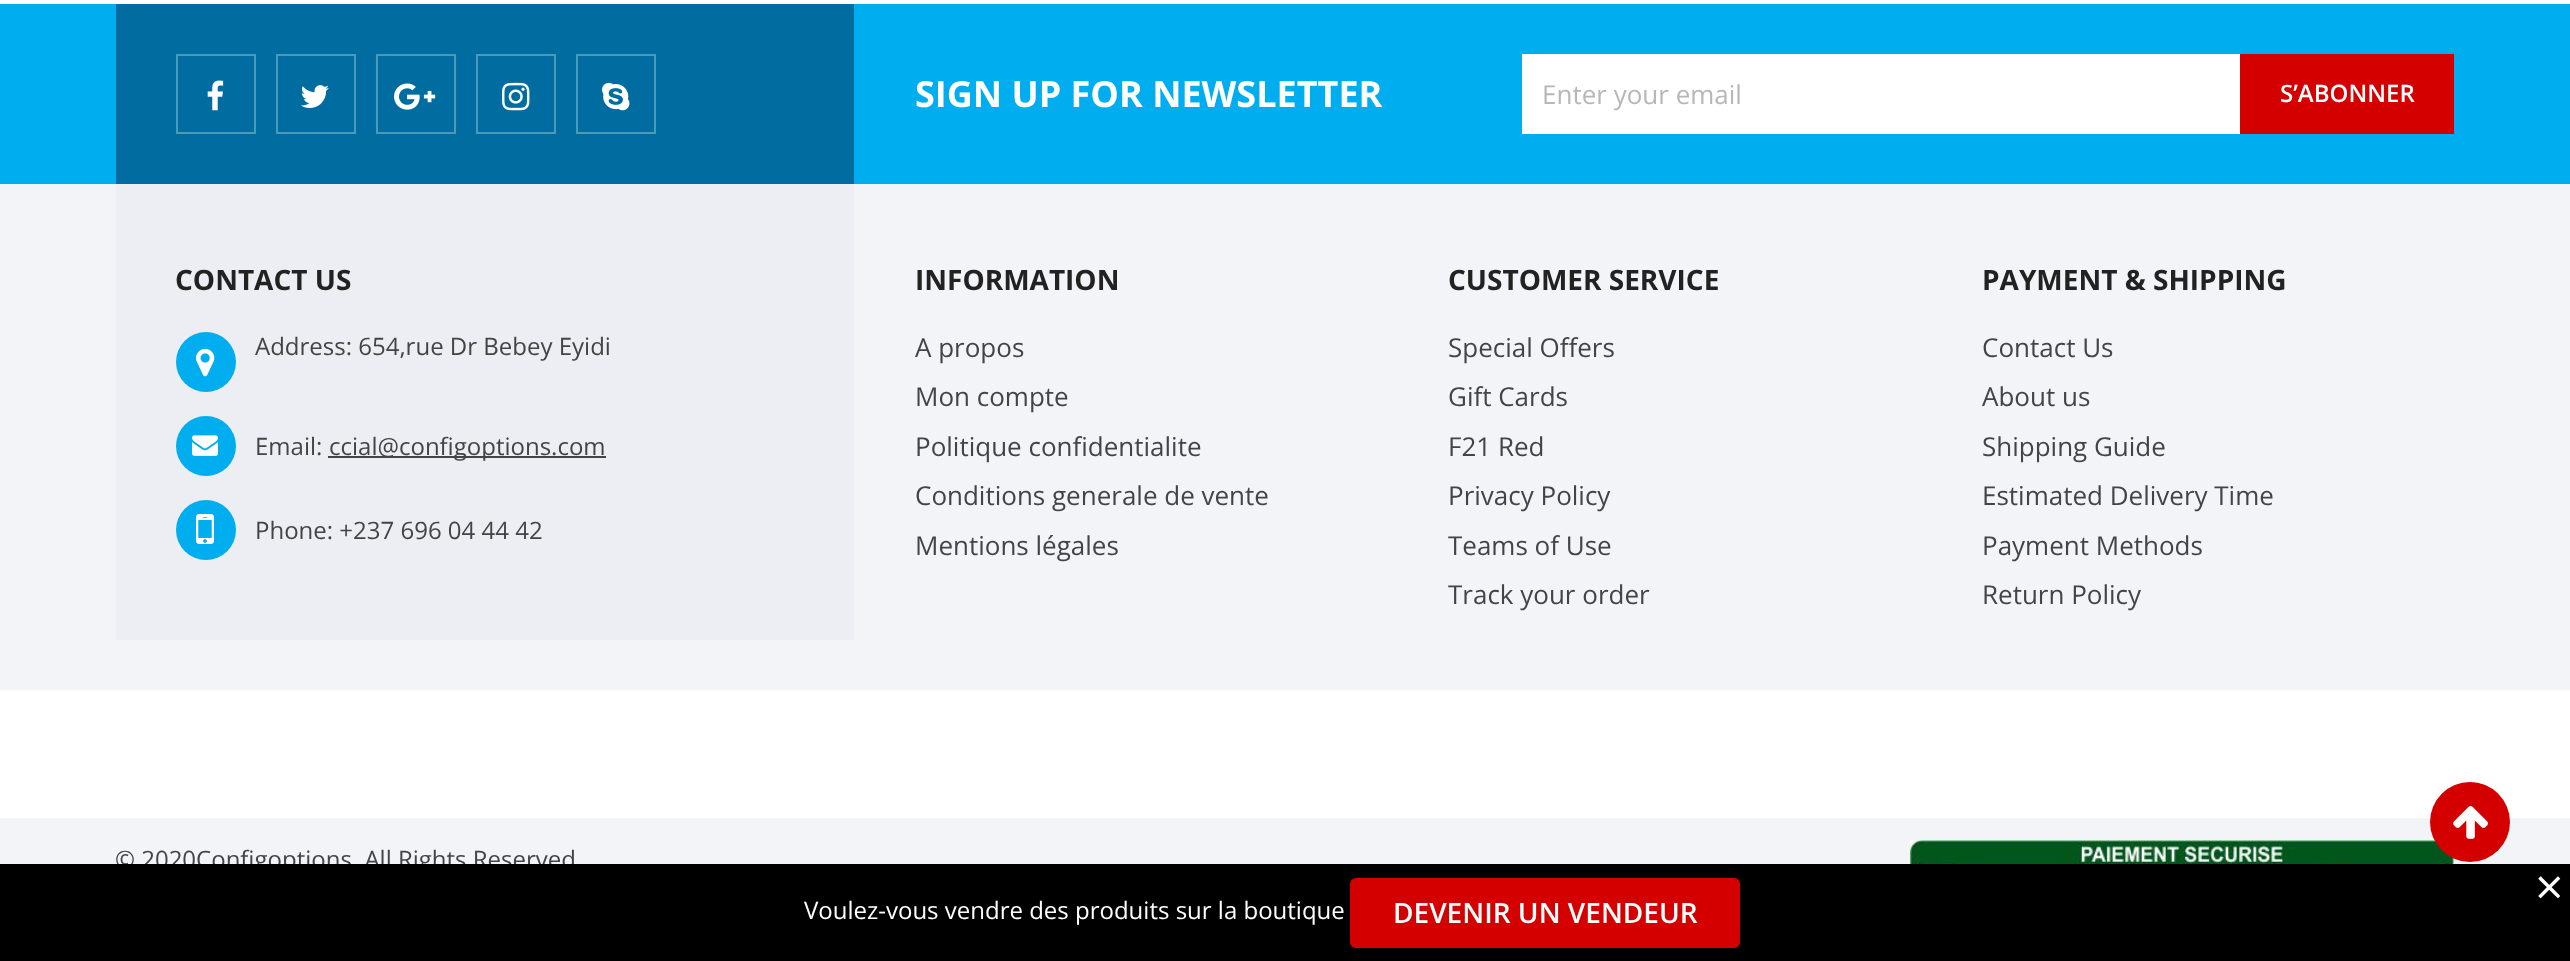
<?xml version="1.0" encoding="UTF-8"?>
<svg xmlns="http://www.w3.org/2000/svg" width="2570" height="961">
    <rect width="100%" height="100%" fill="#FFFFFF"/>
    <rect x="0" y="4" width="2570" height="180" fill="#00AEEF"/>
    <rect x="116" y="4" width="738" height="180" fill="#006CA0"/>
    <rect x="177" y="55" width="78" height="78" fill="none" stroke="#4D98BD" stroke-width="2"/>
    <image x="207" y="80" width="17" height="31" href="img_01.png"/>
    <rect x="277" y="55" width="78" height="78" fill="none" stroke="#4D98BD" stroke-width="2"/>
    <image x="301" y="85" width="28" height="23" href="img_02.png"/>
    <rect x="377" y="55" width="78" height="78" fill="none" stroke="#4D98BD" stroke-width="2"/>
    <image x="394" y="83" width="42" height="27" href="img_03.png"/>
    <rect x="477" y="55" width="78" height="78" fill="none" stroke="#4D98BD" stroke-width="2"/>
    <image x="502" y="82" width="28" height="29" href="img_04.png"/>
    <rect x="577" y="55" width="78" height="78" fill="none" stroke="#4D98BD" stroke-width="2"/>
    <image x="602" y="82" width="28" height="29" href="img_05.png"/>
    <text x="915" y="107" font-family="Open Sans" font-size="36" font-weight="700" fill="#FFFFFF">SIGN UP FOR NEWSLETTER</text>
    <rect x="1522" y="54" width="718" height="80" fill="#FFFFFF"/>
    <text x="1542" y="104" font-family="Open Sans" font-size="26" fill="#B7B7B7">Enter your email</text>
    <rect x="2240" y="54" width="214" height="80" fill="#D40000"/>
    <text x="2280" y="102" font-family="Open Sans" font-size="24" font-weight="600" fill="#FFFFFF">S’ABONNER</text>
    <rect x="0" y="184" width="2570" height="506" fill="#F3F4F8"/>
    <rect x="116" y="184" width="738" height="456" fill="#ECEEF4"/>
    <text x="175" y="290" font-family="Open Sans" font-size="28" font-weight="700" fill="#222222">CONTACT US</text>
    <circle cx="206" cy="362" r="30" fill="#00AEEF"/>
    <image x="196" y="348" width="19" height="29" href="img_06.png"/>
    <text x="255" y="355" font-family="Open Sans" font-size="24" fill="#444444">Address: 654,rue Dr Bebey Eyidi</text>
    <circle cx="206" cy="446" r="30" fill="#00AEEF"/>
    <image x="192" y="435" width="26" height="21" href="img_07.png"/>
    <text x="255" y="455" font-family="Open Sans" font-size="24" fill="#444444">Email:</text>
    <rect x="328" y="456" width="278" height="2" fill="#444444"/>
    <text x="329" y="455" font-family="Open Sans" font-size="24" fill="#444444">ccial@configoptions.com</text>
    <circle cx="206" cy="530" r="30" fill="#00AEEF"/>
    <image x="196" y="514" width="18" height="30" href="img_08.png"/>
    <text x="255" y="539" font-family="Open Sans" font-size="24" fill="#444444">Phone: +237 696 04 44 42</text>
    <text x="915" y="290" font-family="Open Sans" font-size="28" font-weight="700" fill="#222222">INFORMATION</text>
    <text font-family="Open Sans" font-size="26" fill="#444444">
        <tspan x="915" y="357">A propos</tspan>
        <tspan x="915" y="406">Mon compte</tspan>
        <tspan x="915" y="456">Politique confidentialite</tspan>
        <tspan x="915" y="505">Conditions generale de vente</tspan>
        <tspan x="915" y="555">Mentions légales</tspan>
    </text>
    <text x="1448" y="290" font-family="Open Sans" font-size="28" font-weight="700" fill="#222222">CUSTOMER SERVICE</text>
    <text font-family="Open Sans" font-size="26" fill="#444444">
        <tspan x="1448" y="357">Special Offers</tspan>
        <tspan x="1448" y="406">Gift Cards</tspan>
        <tspan x="1448" y="456">F21 Red</tspan>
        <tspan x="1448" y="505">Privacy Policy</tspan>
        <tspan x="1448" y="555">Teams of Use</tspan>
        <tspan x="1448" y="604">Track your order</tspan>
    </text>
    <text x="1982" y="290" font-family="Open Sans" font-size="28" font-weight="700" fill="#222222">PAYMENT &amp; SHIPPING</text>
    <text font-family="Open Sans" font-size="26" fill="#444444">
        <tspan x="1982" y="357">Contact Us</tspan>
        <tspan x="1982" y="406">About us</tspan>
        <tspan x="1982" y="456">Shipping Guide</tspan>
        <tspan x="1982" y="505">Estimated Delivery Time</tspan>
        <tspan x="1982" y="555">Payment Methods</tspan>
        <tspan x="1982" y="604">Return Policy</tspan>
    </text>
    <rect x="0" y="818" width="2570" height="46" fill="#F3F4F8"/>
    <image x="1910" y="840" width="544" height="24" href="img_10.png"/>
    <circle cx="2470" cy="822" r="40" fill="#D40000"/>
    <image x="2453" y="806" width="35" height="33" href="img_09.png"/>
    <text x="115" y="868" font-family="Open Sans" font-size="24" fill="#444444">© 2020Configoptions. All Rights Reserved</text>
    <rect x="0" y="864" width="2570" height="97" fill="#000000"/>
    <text x="2535" y="905" font-family="Open Sans" font-size="50" fill="#FFFFFF">×</text>
    <text x="804" y="919" font-family="Open Sans" font-size="24" fill="#FFFFFF">Voulez-vous vendre des produits sur la boutique</text>
    <rect x="1350" y="878" width="390" height="70" rx="6" fill="#D40000"/>
    <text x="1393" y="923" font-family="Open Sans" font-size="28" font-weight="600" fill="#FFFFFF">DEVENIR UN VENDEUR</text>
</svg>
